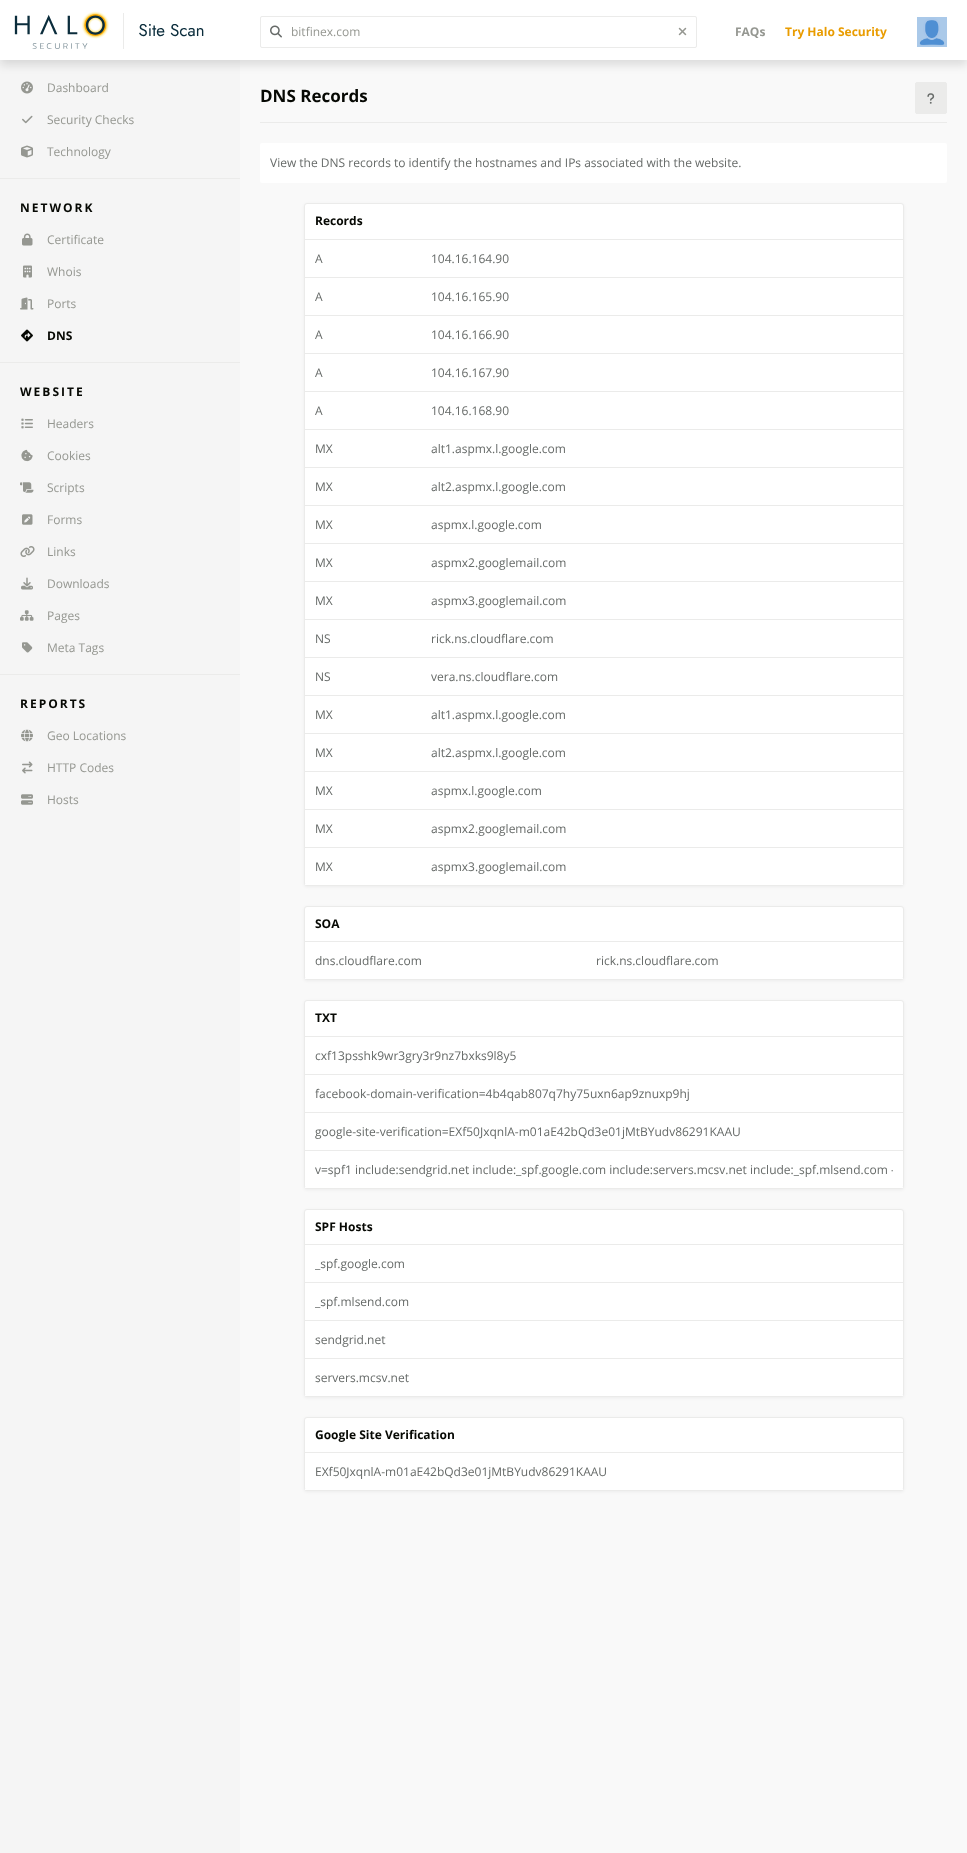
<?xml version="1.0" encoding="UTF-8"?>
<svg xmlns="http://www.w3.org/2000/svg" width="967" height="1853">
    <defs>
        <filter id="blur1" x="-50%" y="-200%" width="200%" height="500%"><feGaussianBlur stdDeviation="5"/></filter>
        <filter id="blur2" x="-50%" y="-200%" width="200%" height="500%"><feGaussianBlur stdDeviation="1.5"/></filter>
        <clipPath id="clip1"><rect x="315" y="1161" width="578" height="17"/></clipPath>
    </defs>
    <rect width="100%" height="100%" fill="#F9F9F9"/>
    <rect x="0" y="60" width="240" height="1793" fill="#F5F5F5"/>
    <rect x="0" y="5" width="967" height="60" fill="#000000" fill-opacity="0.12" filter="url(#blur1)"/>
    <rect x="0" y="0" width="967" height="60" fill="#FFFFFF"/>
    <image x="14" y="11" width="190" height="38" href="img_01.png"/>
    <rect x="260.5" y="16.5" width="436" height="31" rx="1.5" fill="none" stroke="#EBEBEA"/>
    <image x="270" y="25" width="12" height="13" href="img_02.png"/>
    <text x="291" y="36" font-family="Open Sans" font-size="12" fill="#959791">bitfinex.com</text>
    <image x="678" y="27" width="9" height="9" href="img_03.png"/>
    <text x="735" y="36" font-family="Open Sans" font-size="12" font-weight="700" fill="#959791">FAQs</text>
    <text x="785" y="36" font-family="Open Sans" font-size="12" font-weight="700" fill="#E99C00">Try Halo Security</text>
    <image x="917" y="17" width="30" height="30" href="img_04.png"/>
    <image x="21" y="81" width="12" height="13" href="img_05.png"/>
    <text x="47" y="92" font-family="Open Sans" font-size="12" fill="#959791">Dashboard</text>
    <image x="22" y="115" width="11" height="9" href="img_06.png"/>
    <text x="47" y="124" font-family="Open Sans" font-size="12" fill="#959791">Security Checks</text>
    <image x="21" y="145" width="12" height="13" href="img_07.png"/>
    <text x="47" y="156" font-family="Open Sans" font-size="12" fill="#959791">Technology</text>
    <rect x="0" y="178" width="240" height="1" fill="#EBEBEA"/>
    <text x="20" y="212" font-family="Open Sans" font-size="12" font-weight="700" letter-spacing="2" fill="#060803">NETWORK</text>
    <image x="22" y="233" width="11" height="13" href="img_08.png"/>
    <text x="47" y="244" font-family="Open Sans" font-size="12" fill="#959791">Certificate</text>
    <image x="23" y="265" width="9" height="13" href="img_09.png"/>
    <text x="47" y="276" font-family="Open Sans" font-size="12" fill="#959791">Whois</text>
    <image x="20" y="297" width="14" height="13" href="img_10.png"/>
    <text x="47" y="308" font-family="Open Sans" font-size="12" fill="#959791">Ports</text>
    <image x="21" y="329" width="12" height="13" href="img_11.png"/>
    <text x="47" y="340" font-family="Open Sans" font-size="12" font-weight="700" fill="#060803">DNS</text>
    <rect x="0" y="362" width="240" height="1" fill="#EBEBEA"/>
    <text x="20" y="396" font-family="Open Sans" font-size="12" font-weight="700" letter-spacing="2" fill="#060803">WEBSITE</text>
    <image x="21" y="418" width="12" height="11" href="img_12.png"/>
    <text x="47" y="428" font-family="Open Sans" font-size="12" fill="#959791">Headers</text>
    <image x="21" y="449" width="12" height="13" href="img_13.png"/>
    <text x="47" y="460" font-family="Open Sans" font-size="12" fill="#959791">Cookies</text>
    <image x="20" y="482" width="14" height="11" href="img_14.png"/>
    <text x="47" y="492" font-family="Open Sans" font-size="12" fill="#959791">Scripts</text>
    <image x="22" y="514" width="11" height="11" href="img_15.png"/>
    <text x="47" y="524" font-family="Open Sans" font-size="12" fill="#959791">Forms</text>
    <image x="20" y="546" width="15" height="11" href="img_16.png"/>
    <text x="47" y="556" font-family="Open Sans" font-size="12" fill="#959791">Links</text>
    <image x="21" y="577" width="12" height="13" href="img_17.png"/>
    <text x="47" y="588" font-family="Open Sans" font-size="12" fill="#959791">Downloads</text>
    <image x="20" y="610" width="14" height="11" href="img_18.png"/>
    <text x="47" y="620" font-family="Open Sans" font-size="12" fill="#959791">Pages</text>
    <image x="22" y="642" width="11" height="11" href="img_19.png"/>
    <text x="47" y="652" font-family="Open Sans" font-size="12" fill="#959791">Meta Tags</text>
    <rect x="0" y="674" width="240" height="1" fill="#EBEBEA"/>
    <text x="20" y="708" font-family="Open Sans" font-size="12" font-weight="700" letter-spacing="2" fill="#060803">REPORTS</text>
    <image x="21" y="729" width="12" height="13" href="img_20.png"/>
    <text x="47" y="740" font-family="Open Sans" font-size="12" fill="#959791">Geo Locations</text>
    <image x="22" y="761" width="11" height="13" href="img_21.png"/>
    <text x="47" y="772" font-family="Open Sans" font-size="12" fill="#959791">HTTP Codes</text>
    <image x="21" y="794" width="12" height="11" href="img_22.png"/>
    <text x="47" y="804" font-family="Open Sans" font-size="12" fill="#959791">Hosts</text>
    <rect x="260" y="122" width="687" height="1" fill="#EBEBEA"/>
    <text x="260" y="102" font-family="Open Sans" font-size="17" font-weight="700" fill="#060803">DNS Records</text>
    <rect x="915.5" y="82.5" width="31" height="31" rx="1.5" fill="#EBEBEA" stroke="#EBEBEA"/>
    <image x="927" y="93" width="8" height="11" href="img_23.png"/>
    <rect x="260" y="143" width="687" height="40" rx="2" fill="#FFFFFF"/>
    <text x="270" y="167" font-family="Open Sans" font-size="12" fill="#666A68">View the DNS records to identify the hostnames and IPs associated with the website.</text>
    <rect x="304" y="204" width="600" height="683" rx="3" fill="#000000" fill-opacity="0.05" filter="url(#blur2)"/>
    <rect x="304.5" y="203.5" width="599" height="682" rx="2.5" fill="#FFFFFF" stroke="#EBEBEA"/>
    <rect x="305" y="239" width="598" height="1" fill="#EBEBEA"/>
    <text x="315" y="225" font-family="Open Sans" font-size="12" font-weight="700" fill="#060803">Records</text>
    <rect x="305" y="884" width="598" height="1" fill="#FFFFFF"/>
    <text x="315" y="263" font-family="Open Sans" font-size="12" fill="#666A68">A</text>
    <text x="431" y="263" font-family="Open Sans" font-size="12" fill="#666A68">104.16.164.90</text>
    <text x="315" y="301" font-family="Open Sans" font-size="12" fill="#666A68">A</text>
    <rect x="304" y="277" width="599" height="1" fill="#EBEBEA"/>
    <text x="431" y="301" font-family="Open Sans" font-size="12" fill="#666A68">104.16.165.90</text>
    <text x="315" y="339" font-family="Open Sans" font-size="12" fill="#666A68">A</text>
    <rect x="304" y="315" width="599" height="1" fill="#EBEBEA"/>
    <text x="431" y="339" font-family="Open Sans" font-size="12" fill="#666A68">104.16.166.90</text>
    <text x="315" y="377" font-family="Open Sans" font-size="12" fill="#666A68">A</text>
    <rect x="304" y="353" width="599" height="1" fill="#EBEBEA"/>
    <text x="431" y="377" font-family="Open Sans" font-size="12" fill="#666A68">104.16.167.90</text>
    <text x="315" y="415" font-family="Open Sans" font-size="12" fill="#666A68">A</text>
    <rect x="304" y="391" width="599" height="1" fill="#EBEBEA"/>
    <text x="431" y="415" font-family="Open Sans" font-size="12" fill="#666A68">104.16.168.90</text>
    <text x="315" y="453" font-family="Open Sans" font-size="12" fill="#666A68">MX</text>
    <rect x="304" y="429" width="599" height="1" fill="#EBEBEA"/>
    <text x="431" y="453" font-family="Open Sans" font-size="12" fill="#666A68">alt1.aspmx.l.google.com</text>
    <text x="315" y="491" font-family="Open Sans" font-size="12" fill="#666A68">MX</text>
    <rect x="304" y="467" width="599" height="1" fill="#EBEBEA"/>
    <text x="431" y="491" font-family="Open Sans" font-size="12" fill="#666A68">alt2.aspmx.l.google.com</text>
    <text x="315" y="529" font-family="Open Sans" font-size="12" fill="#666A68">MX</text>
    <rect x="304" y="505" width="599" height="1" fill="#EBEBEA"/>
    <text x="431" y="529" font-family="Open Sans" font-size="12" fill="#666A68">aspmx.l.google.com</text>
    <text x="315" y="567" font-family="Open Sans" font-size="12" fill="#666A68">MX</text>
    <rect x="304" y="543" width="599" height="1" fill="#EBEBEA"/>
    <text x="431" y="567" font-family="Open Sans" font-size="12" fill="#666A68">aspmx2.googlemail.com</text>
    <text x="315" y="605" font-family="Open Sans" font-size="12" fill="#666A68">MX</text>
    <rect x="304" y="581" width="599" height="1" fill="#EBEBEA"/>
    <text x="431" y="605" font-family="Open Sans" font-size="12" fill="#666A68">aspmx3.googlemail.com</text>
    <text x="315" y="643" font-family="Open Sans" font-size="12" fill="#666A68">NS</text>
    <rect x="304" y="619" width="599" height="1" fill="#EBEBEA"/>
    <text x="431" y="643" font-family="Open Sans" font-size="12" fill="#666A68">rick.ns.cloudflare.com</text>
    <text x="315" y="681" font-family="Open Sans" font-size="12" fill="#666A68">NS</text>
    <rect x="304" y="657" width="599" height="1" fill="#EBEBEA"/>
    <text x="431" y="681" font-family="Open Sans" font-size="12" fill="#666A68">vera.ns.cloudflare.com</text>
    <text x="315" y="719" font-family="Open Sans" font-size="12" fill="#666A68">MX</text>
    <rect x="304" y="695" width="599" height="1" fill="#EBEBEA"/>
    <text x="431" y="719" font-family="Open Sans" font-size="12" fill="#666A68">alt1.aspmx.l.google.com</text>
    <text x="315" y="757" font-family="Open Sans" font-size="12" fill="#666A68">MX</text>
    <rect x="304" y="733" width="599" height="1" fill="#EBEBEA"/>
    <text x="431" y="757" font-family="Open Sans" font-size="12" fill="#666A68">alt2.aspmx.l.google.com</text>
    <text x="315" y="795" font-family="Open Sans" font-size="12" fill="#666A68">MX</text>
    <rect x="304" y="771" width="599" height="1" fill="#EBEBEA"/>
    <text x="431" y="795" font-family="Open Sans" font-size="12" fill="#666A68">aspmx.l.google.com</text>
    <text x="315" y="833" font-family="Open Sans" font-size="12" fill="#666A68">MX</text>
    <rect x="304" y="809" width="599" height="1" fill="#EBEBEA"/>
    <text x="431" y="833" font-family="Open Sans" font-size="12" fill="#666A68">aspmx2.googlemail.com</text>
    <text x="315" y="871" font-family="Open Sans" font-size="12" fill="#666A68">MX</text>
    <rect x="304" y="847" width="599" height="1" fill="#EBEBEA"/>
    <text x="431" y="871" font-family="Open Sans" font-size="12" fill="#666A68">aspmx3.googlemail.com</text>
    <rect x="304" y="907" width="600" height="74" rx="3" fill="#000000" fill-opacity="0.05" filter="url(#blur2)"/>
    <rect x="304.5" y="906.5" width="599" height="73" rx="2.5" fill="#FFFFFF" stroke="#EBEBEA"/>
    <rect x="305" y="941" width="598" height="1" fill="#EBEBEA"/>
    <text x="315" y="928" font-family="Open Sans" font-size="12" font-weight="700" fill="#060803">SOA</text>
    <rect x="305" y="978" width="598" height="1" fill="#FFFFFF"/>
    <text x="315" y="965" font-family="Open Sans" font-size="12" fill="#666A68">dns.cloudflare.com</text>
    <text x="596" y="965" font-family="Open Sans" font-size="12" fill="#666A68">rick.ns.cloudflare.com</text>
    <rect x="304" y="1001" width="600" height="189" rx="3" fill="#000000" fill-opacity="0.05" filter="url(#blur2)"/>
    <rect x="304.5" y="1000.5" width="599" height="188" rx="2.5" fill="#FFFFFF" stroke="#EBEBEA"/>
    <rect x="305" y="1036" width="598" height="1" fill="#EBEBEA"/>
    <text x="315" y="1022" font-family="Open Sans" font-size="12" font-weight="700" fill="#060803">TXT</text>
    <rect x="305" y="1187" width="598" height="1" fill="#FFFFFF"/>
    <text x="315" y="1060" font-family="Open Sans" font-size="12" fill="#666A68">cxf13psshk9wr3gry3r9nz7bxks9l8y5</text>
    <rect x="304" y="1074" width="599" height="1" fill="#EBEBEA"/>
    <text x="315" y="1098" font-family="Open Sans" font-size="12" fill="#666A68">facebook-domain-verification=4b4qab807q7hy75uxn6ap9znuxp9hj</text>
    <rect x="304" y="1112" width="599" height="1" fill="#EBEBEA"/>
    <text x="315" y="1136" font-family="Open Sans" font-size="12" fill="#666A68">google-site-verification=EXf50JxqnlA-m01aE42bQd3e01jMtBYudv86291KAAU</text>
    <rect x="304" y="1150" width="599" height="1" fill="#EBEBEA"/>
    <g clip-path="url(#clip1)">
        <text x="315" y="1174" font-family="Open Sans" font-size="12" fill="#666A68">v=spf1 include:sendgrid.net include:_spf.google.com include:servers.mcsv.net include:_spf.mlsend.com -</text>
    </g>
    <rect x="304" y="1210" width="600" height="188" rx="3" fill="#000000" fill-opacity="0.05" filter="url(#blur2)"/>
    <rect x="304.5" y="1209.5" width="599" height="187" rx="2.5" fill="#FFFFFF" stroke="#EBEBEA"/>
    <rect x="305" y="1244" width="598" height="1" fill="#EBEBEA"/>
    <text x="315" y="1231" font-family="Open Sans" font-size="12" font-weight="700" fill="#060803">SPF Hosts</text>
    <rect x="305" y="1395" width="598" height="1" fill="#FFFFFF"/>
    <text x="315" y="1268" font-family="Open Sans" font-size="12" fill="#666A68">_spf.google.com</text>
    <rect x="304" y="1282" width="599" height="1" fill="#EBEBEA"/>
    <text x="315" y="1306" font-family="Open Sans" font-size="12" fill="#666A68">_spf.mlsend.com</text>
    <rect x="304" y="1320" width="599" height="1" fill="#EBEBEA"/>
    <text x="315" y="1344" font-family="Open Sans" font-size="12" fill="#666A68">sendgrid.net</text>
    <rect x="304" y="1358" width="599" height="1" fill="#EBEBEA"/>
    <text x="315" y="1382" font-family="Open Sans" font-size="12" fill="#666A68">servers.mcsv.net</text>
    <rect x="304" y="1418" width="600" height="74" rx="3" fill="#000000" fill-opacity="0.05" filter="url(#blur2)"/>
    <rect x="304.5" y="1417.5" width="599" height="73" rx="2.5" fill="#FFFFFF" stroke="#EBEBEA"/>
    <rect x="305" y="1452" width="598" height="1" fill="#EBEBEA"/>
    <text x="315" y="1439" font-family="Open Sans" font-size="12" font-weight="700" fill="#060803">Google Site Verification</text>
    <rect x="305" y="1489" width="598" height="1" fill="#FFFFFF"/>
    <text x="315" y="1476" font-family="Open Sans" font-size="12" fill="#666A68">EXf50JxqnlA-m01aE42bQd3e01jMtBYudv86291KAAU</text>
</svg>
